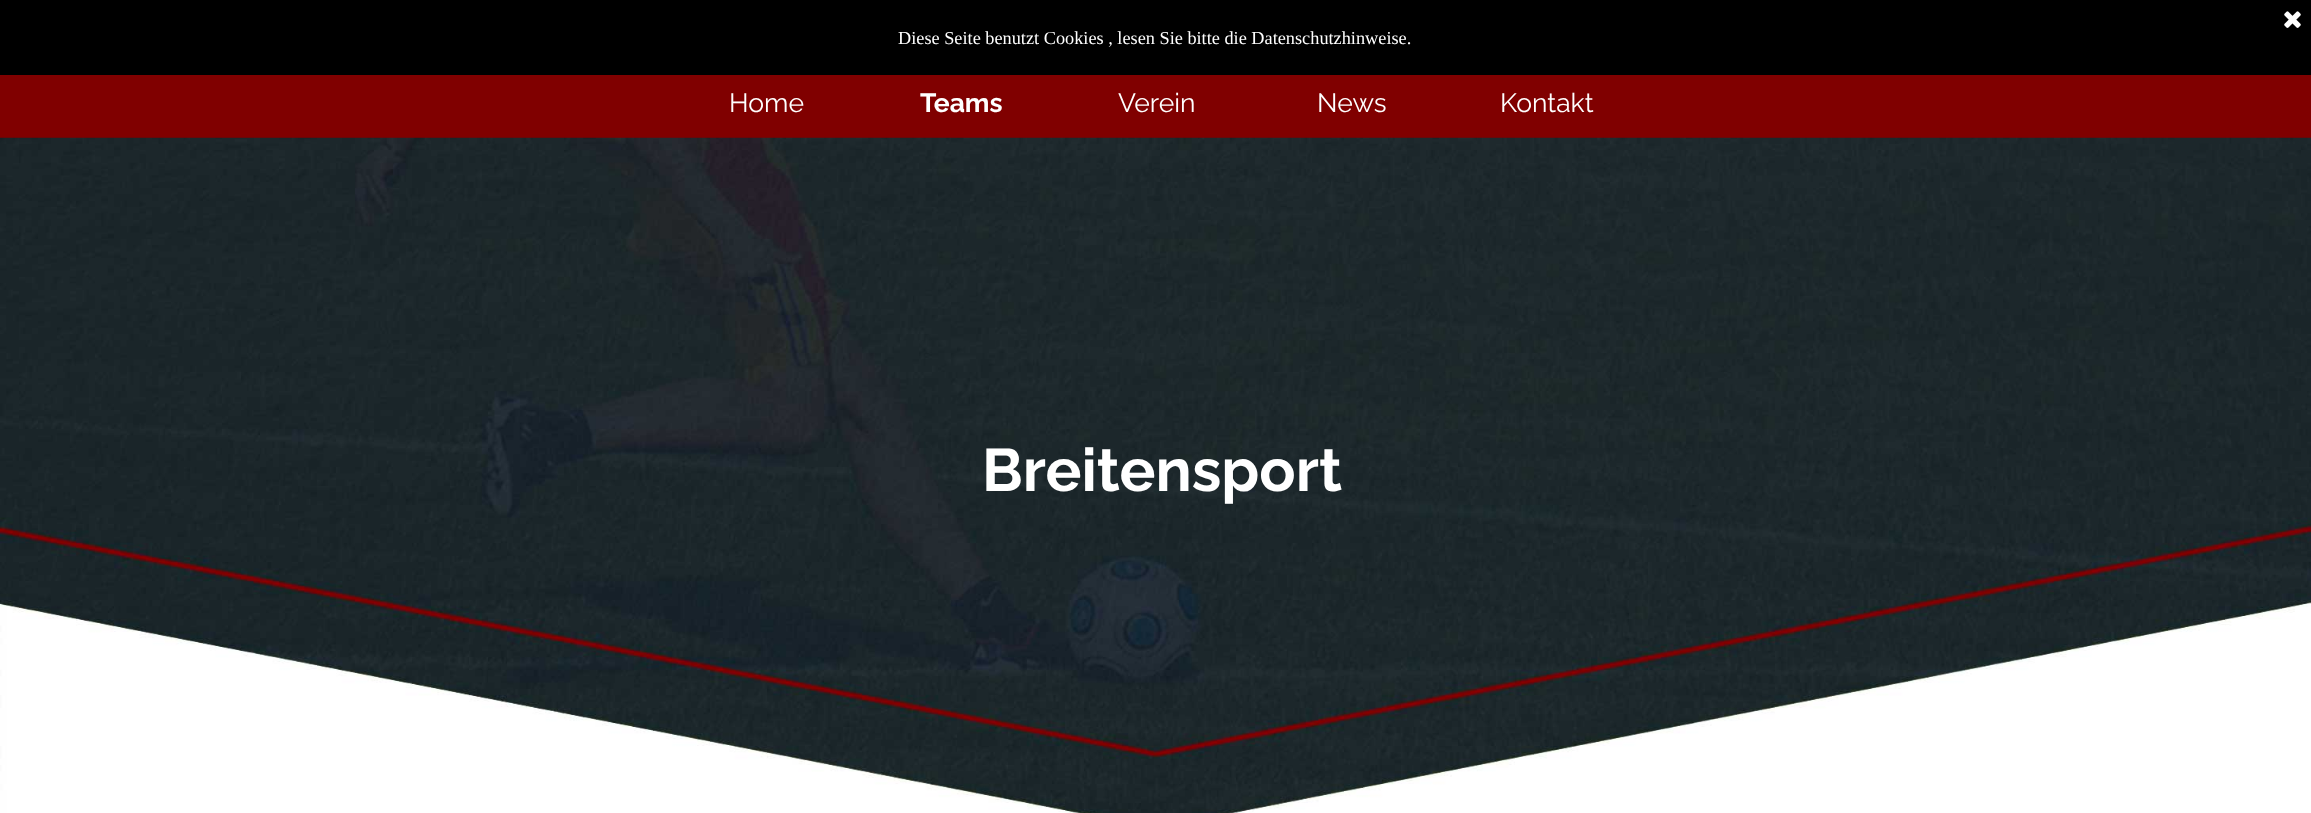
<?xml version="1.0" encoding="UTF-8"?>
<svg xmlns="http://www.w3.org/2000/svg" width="2311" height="813">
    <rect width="100%" height="100%" fill="#800000"/>
    <rect x="0" y="0" width="2311" height="75" fill="#000000"/>
    <image x="2284" y="11" width="17" height="17" href="img_01.png"/>
    <text x="898" y="44" font-family="Liberation Serif" font-size="18.3" fill="#FFFFFF">Diese Seite benutzt Cookies , lesen Sie bitte die Datenschutzhinweise.</text>
    <text x="729" y="112" font-family="Raleway" font-size="26.5" fill="#FFFFFF">Home</text>
    <text x="920" y="112" font-family="Raleway" font-size="26.5" font-weight="700" fill="#FFFFFF">Teams</text>
    <text x="1118" y="112" font-family="Raleway" font-size="26.5" fill="#FFFFFF">Verein</text>
    <text x="1317" y="112" font-family="Raleway" font-size="26.5" fill="#FFFFFF">News</text>
    <text x="1500" y="112" font-family="Raleway" font-size="26.5" fill="#FFFFFF">Kontakt</text>
    <image x="0" y="137" width="2311" height="676" href="img_02.png"/>
    <text x="982" y="491" font-family="Raleway" font-size="60" font-weight="700" fill="#FFFFFF">Breitensport</text>
</svg>
